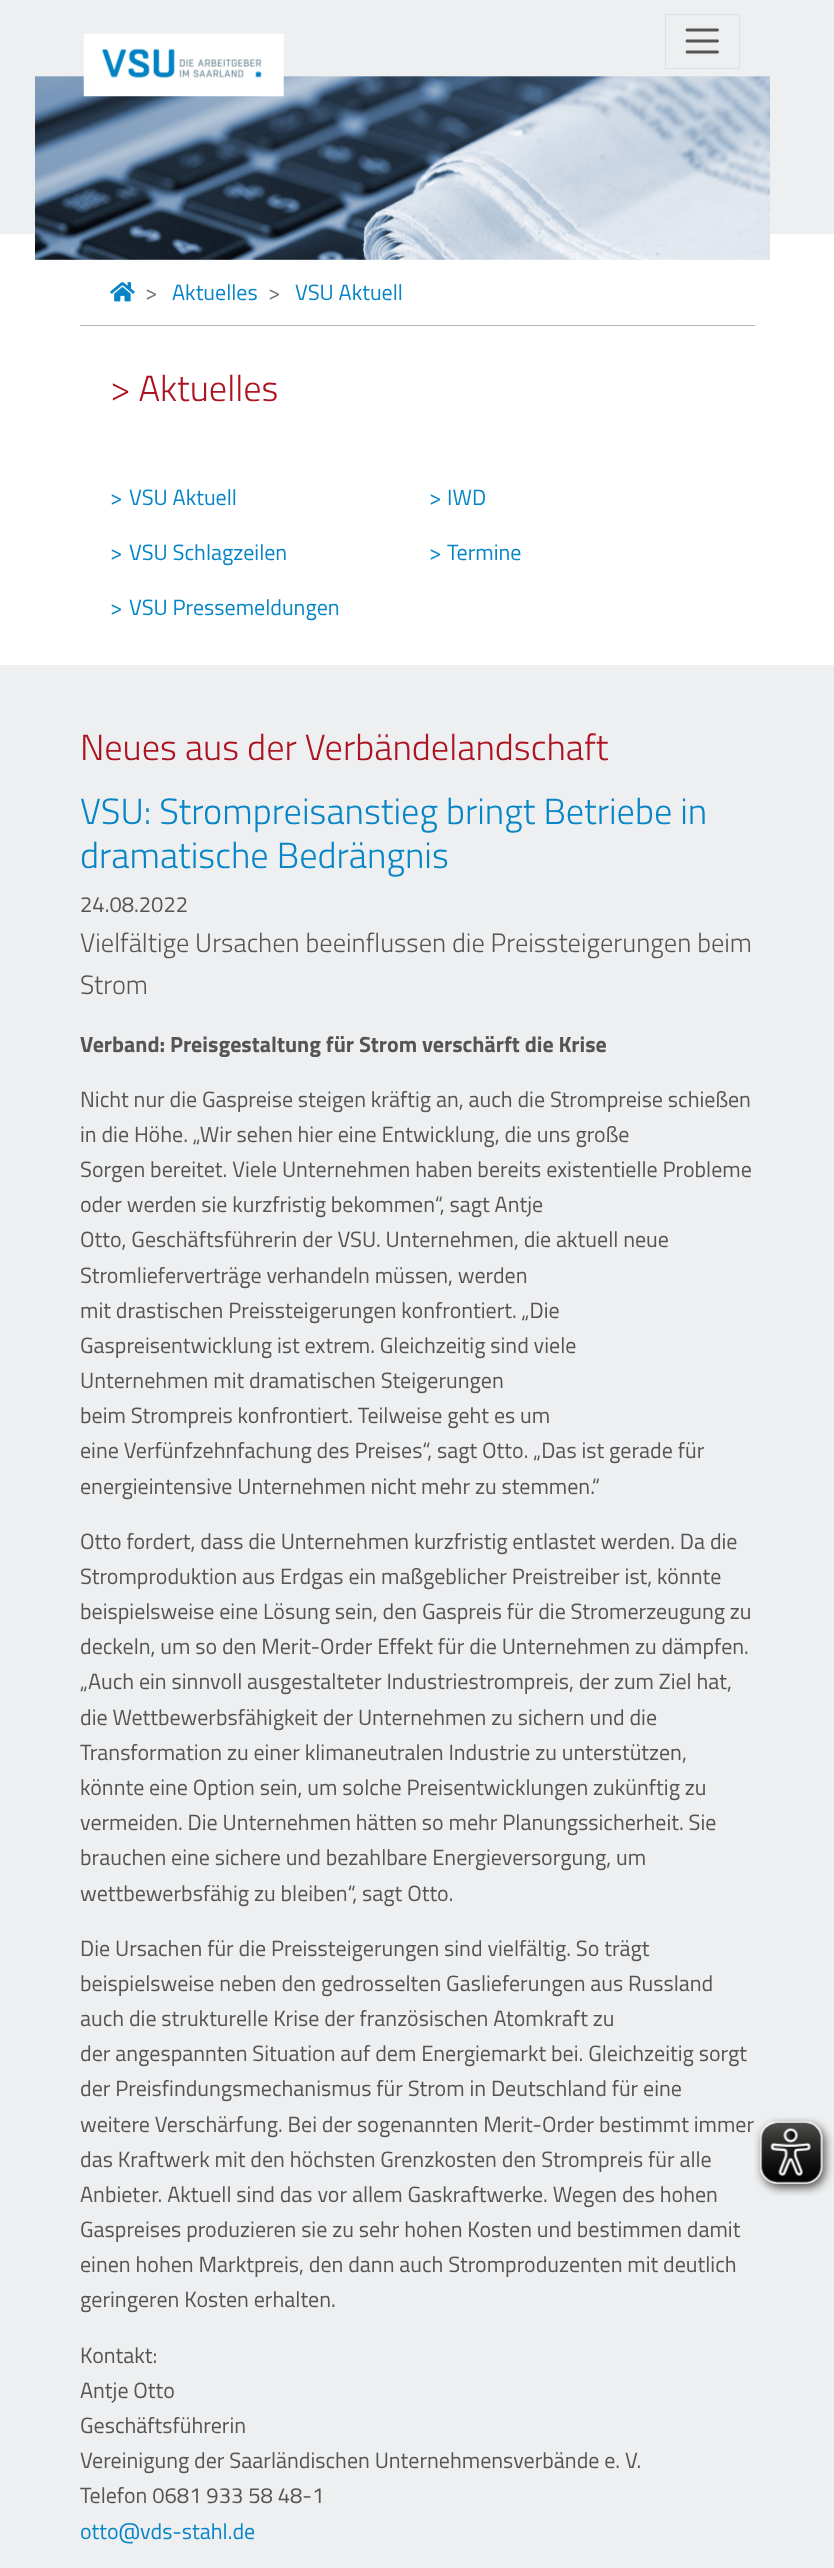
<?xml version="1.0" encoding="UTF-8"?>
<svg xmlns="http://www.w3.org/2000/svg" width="834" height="2568">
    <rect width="100%" height="100%" fill="#FFFFFF"/>
    <rect x="0" y="0" width="834" height="234" fill="#EEEFF0"/>
    <image x="35" y="76" width="735" height="184" href="img_02.png"/>
    <image x="83" y="33" width="201" height="64" href="img_01.png"/>
    <rect x="665.5" y="14.5" width="74" height="54" fill="none" stroke="#DFE0E1"/>
    <path d="M 687 30 H 717.5 M 687 41 H 717.5 M 687 52 H 717.5" fill="none" stroke="#555555" stroke-width="2.8" stroke-linecap="round"/>
    <rect x="80" y="325" width="675" height="1" fill="#B3B4B5"/>
    <image x="110" y="282" width="25" height="20" href="img_03.png"/>
    <text x="145" y="300" font-family="Titillium Web" font-size="22" fill="#6C757D">&gt;</text>
    <text x="172" y="300" font-family="Titillium Web" font-size="22" fill="#0685C7">Aktuelles</text>
    <text x="268" y="300" font-family="Titillium Web" font-size="22" fill="#6C757D">&gt;</text>
    <text x="295" y="300" font-family="Titillium Web" font-size="22" fill="#0685C7">VSU Aktuell</text>
    <text x="110" y="401" font-family="Titillium Web" font-size="36.4" font-weight="300" fill="#AD1422">&gt; Aktuelles</text>
    <text x="110" y="505" font-family="Titillium Web" font-size="22" fill="#0685C7">&gt;</text>
    <text x="129" y="505" font-family="Titillium Web" font-size="22" fill="#0685C7">VSU Aktuell</text>
    <text x="429" y="505" font-family="Titillium Web" font-size="22" fill="#0685C7">&gt;</text>
    <text x="447" y="505" font-family="Titillium Web" font-size="22" fill="#0685C7">IWD</text>
    <text x="110" y="560" font-family="Titillium Web" font-size="22" fill="#0685C7">&gt;</text>
    <text x="129" y="560" font-family="Titillium Web" font-size="22" fill="#0685C7">VSU Schlagzeilen</text>
    <text x="429" y="560" font-family="Titillium Web" font-size="22" fill="#0685C7">&gt;</text>
    <text x="447" y="560" font-family="Titillium Web" font-size="22" fill="#0685C7">Termine</text>
    <text x="110" y="615" font-family="Titillium Web" font-size="22" fill="#0685C7">&gt;</text>
    <text x="129" y="615" font-family="Titillium Web" font-size="22" fill="#0685C7">VSU Pressemeldungen</text>
    <rect x="0" y="665" width="834" height="1903" fill="#EEEFF0"/>
    <text x="80" y="760" font-family="Titillium Web" font-size="36.4" font-weight="300" fill="#AD1422">Neues aus der Verbändelandschaft</text>
    <text font-family="Titillium Web" font-size="36.4" font-weight="300" fill="#0685C7">
        <tspan x="80" y="824">VSU: Strompreisanstieg bringt Betriebe in</tspan>
        <tspan x="80" y="868">dramatische Bedrängnis</tspan>
    </text>
    <text x="80" y="912" font-family="Titillium Web" font-size="22" fill="#555555">24.08.2022</text>
    <text font-family="Titillium Web" font-size="26.5" font-weight="300" fill="#555555">
        <tspan x="80" y="952">Vielfältige Ursachen beeinflussen die Preissteigerungen beim</tspan>
        <tspan x="80" y="994">Strom</tspan>
    </text>
    <text x="80" y="1052" font-family="Titillium Web" font-size="22" font-weight="700" fill="#555555">Verband: Preisgestaltung für Strom verschärft die Krise</text>
    <text font-family="Titillium Web" font-size="22" fill="#555555">
        <tspan x="80" y="1107">Nicht nur die Gaspreise steigen kräftig an, auch die Strompreise schießen</tspan>
        <tspan x="80" y="1142">in die Höhe. „Wir sehen hier eine Entwicklung, die uns große</tspan>
        <tspan x="80" y="1177">Sorgen bereitet. Viele Unternehmen haben bereits existentielle Probleme</tspan>
        <tspan x="80" y="1212">oder werden sie kurzfristig bekommen“, sagt Antje</tspan>
        <tspan x="80" y="1247">Otto, Geschäftsführerin der VSU. Unternehmen, die aktuell neue</tspan>
        <tspan x="80" y="1283">Stromlieferverträge verhandeln müssen, werden</tspan>
        <tspan x="80" y="1318">mit drastischen Preissteigerungen konfrontiert. „Die</tspan>
        <tspan x="80" y="1353">Gaspreisentwicklung ist extrem. Gleichzeitig sind viele</tspan>
        <tspan x="80" y="1388">Unternehmen mit dramatischen Steigerungen</tspan>
        <tspan x="80" y="1423">beim Strompreis konfrontiert. Teilweise geht es um</tspan>
        <tspan x="80" y="1458">eine Verfünfzehnfachung des Preises“, sagt Otto. „Das ist gerade für</tspan>
        <tspan x="80" y="1494">energieintensive Unternehmen nicht mehr zu stemmen.“</tspan>
    </text>
    <text font-family="Titillium Web" font-size="22" fill="#555555">
        <tspan x="80" y="1549">Otto fordert, dass die Unternehmen kurzfristig entlastet werden. Da die</tspan>
        <tspan x="80" y="1584">Stromproduktion aus Erdgas ein maßgeblicher Preistreiber ist, könnte</tspan>
        <tspan x="80" y="1619">beispielsweise eine Lösung sein, den Gaspreis für die Stromerzeugung zu</tspan>
        <tspan x="80" y="1654">deckeln, um so den Merit-Order Effekt für die Unternehmen zu dämpfen.</tspan>
        <tspan x="80" y="1689">„Auch ein sinnvoll ausgestalteter Industriestrompreis, der zum Ziel hat,</tspan>
        <tspan x="80" y="1725">die Wettbewerbsfähigkeit der Unternehmen zu sichern und die</tspan>
        <tspan x="80" y="1760">Transformation zu einer klimaneutralen Industrie zu unterstützen,</tspan>
        <tspan x="80" y="1795">könnte eine Option sein, um solche Preisentwicklungen zukünftig zu</tspan>
        <tspan x="80" y="1830">vermeiden. Die Unternehmen hätten so mehr Planungssicherheit. Sie</tspan>
        <tspan x="80" y="1865">brauchen eine sichere und bezahlbare Energieversorgung, um</tspan>
        <tspan x="80" y="1901">wettbewerbsfähig zu bleiben“, sagt Otto.</tspan>
    </text>
    <text font-family="Titillium Web" font-size="22" fill="#555555">
        <tspan x="80" y="1956">Die Ursachen für die Preissteigerungen sind vielfältig. So trägt</tspan>
        <tspan x="80" y="1991">beispielsweise neben den gedrosselten Gaslieferungen aus Russland</tspan>
        <tspan x="80" y="2026">auch die strukturelle Krise der französischen Atomkraft zu</tspan>
        <tspan x="80" y="2061">der angespannten Situation auf dem Energiemarkt bei. Gleichzeitig sorgt</tspan>
        <tspan x="80" y="2096">der Preisfindungsmechanismus für Strom in Deutschland für eine</tspan>
        <tspan x="80" y="2132">weitere Verschärfung. Bei der sogenannten Merit-Order bestimmt immer</tspan>
        <tspan x="80" y="2167">das Kraftwerk mit den höchsten Grenzkosten den Strompreis für alle</tspan>
        <tspan x="80" y="2202">Anbieter. Aktuell sind das vor allem Gaskraftwerke. Wegen des hohen</tspan>
        <tspan x="80" y="2237">Gaspreises produzieren sie zu sehr hohen Kosten und bestimmen damit</tspan>
        <tspan x="80" y="2272">einen hohen Marktpreis, den dann auch Stromproduzenten mit deutlich</tspan>
        <tspan x="80" y="2307">geringeren Kosten erhalten.</tspan>
    </text>
    <text font-family="Titillium Web" font-size="22" fill="#555555">
        <tspan x="80" y="2363">Kontakt:</tspan>
        <tspan x="80" y="2398">Antje Otto</tspan>
        <tspan x="80" y="2433">Geschäftsführerin</tspan>
        <tspan x="80" y="2468">Vereinigung der Saarländischen Unternehmensverbände e. V.</tspan>
        <tspan x="80" y="2503">Telefon 0681 933 58 48-1</tspan>
    </text>
    <text x="80" y="2539" font-family="Titillium Web" font-size="22" fill="#0685C7">otto@vds-stahl.de</text>
    <image x="754" y="2117" width="80" height="79" href="img_04.png"/>
</svg>
